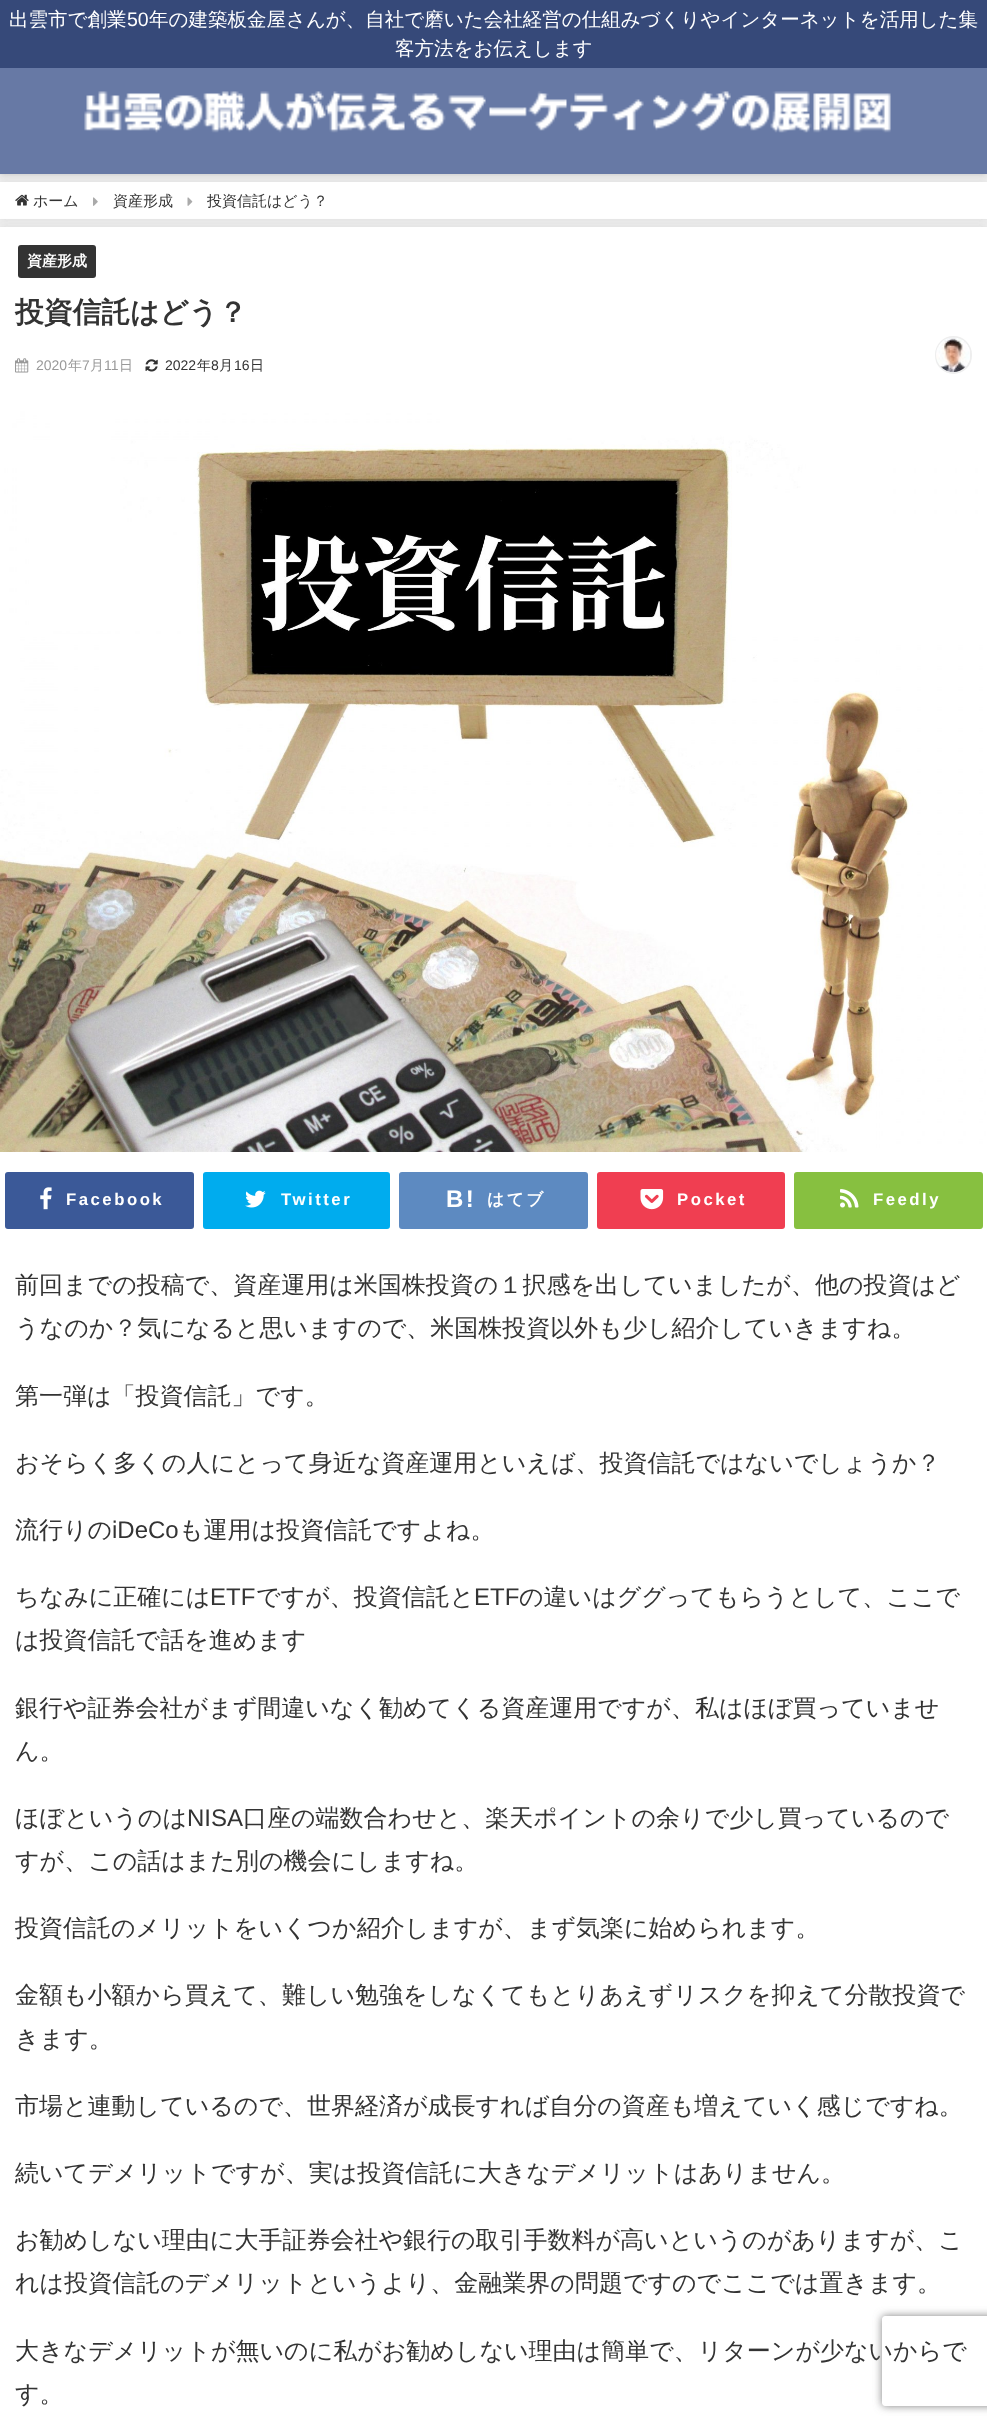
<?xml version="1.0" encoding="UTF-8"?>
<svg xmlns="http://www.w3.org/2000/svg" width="987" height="2426">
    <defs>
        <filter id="blur1" x="-50%" y="-200%" width="200%" height="500%"><feGaussianBlur stdDeviation="4"/></filter>
        <filter id="blur2" x="-50%" y="-200%" width="200%" height="500%"><feGaussianBlur stdDeviation="3"/></filter>
        <clipPath id="clip1"><path d="M 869 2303 H 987 V 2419 H 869 Z M 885 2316 H 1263 C 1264.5 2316 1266 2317.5 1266 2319 V 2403 C 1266 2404.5 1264.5 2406 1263 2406 H 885 C 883.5 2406 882 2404.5 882 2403 V 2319 C 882 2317.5 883.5 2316 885 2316 Z" clip-rule="evenodd"/></clipPath>
    </defs>
    <rect width="100%" height="100%" fill="#EEEEEE"/>
    <rect x="0" y="182" width="987" height="37" fill="#969696" fill-opacity="0.2" filter="url(#blur1)"/>
    <rect x="0" y="182" width="987" height="37" fill="#FFFFFF"/>
    <rect x="0" y="0" width="987" height="174" fill="#000000" fill-opacity="0.2" filter="url(#blur2)"/>
    <rect x="0" y="68" width="987" height="106" fill="#6779A5"/>
    <rect x="0" y="0" width="987" height="68" fill="#364979"/>
    <text x="9" y="26" font-family="WenQuanYi Zen Hei" font-size="19.5" font-weight="500" fill="#FFFFFF">出雲市で創業</text>
    <text x="127" y="26" font-family="Liberation Sans" font-size="19.5" fill="#FFFFFF">50</text>
    <text x="149" y="26" font-family="WenQuanYi Zen Hei" font-size="19.5" font-weight="500" fill="#FFFFFF">年の建築板金屋さんが、自社で磨いた会社経営の仕組みづくりやインターネットを活用した集</text>
    <text x="395" y="55" font-family="WenQuanYi Zen Hei" font-size="19.5" font-weight="500" fill="#FFFFFF">客方法をお伝えします</text>
    <image x="84" y="91" width="807" height="42" href="img_01.png"/>
    <image x="15" y="194" width="14" height="12" href="img_02.png"/>
    <text x="33" y="206" font-family="WenQuanYi Zen Hei" font-size="15" font-weight="500" fill="#333333">ホーム</text>
    <image x="93" y="197" width="5" height="9" href="img_03.png"/>
    <text x="113" y="206" font-family="WenQuanYi Zen Hei" font-size="15" font-weight="500" fill="#333333">資産形成</text>
    <image x="187" y="197" width="6" height="9" href="img_04.png"/>
    <text x="207" y="206" font-family="WenQuanYi Zen Hei" font-size="15" font-weight="500" fill="#333333">投資信託はどう？</text>
    <rect x="0" y="227" width="987" height="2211" fill="#969696" fill-opacity="0.2" filter="url(#blur1)"/>
    <rect x="0" y="227" width="987" height="2199" fill="#FFFFFF"/>
    <rect x="18" y="245" width="78" height="33" rx="3" fill="#333333"/>
    <text x="27" y="266" font-family="WenQuanYi Zen Hei" font-size="15" font-weight="700" fill="#FFFFFF">資産形成</text>
    <text x="15" y="322" font-family="WenQuanYi Zen Hei" font-size="28.75" font-weight="700" fill="#333333">投資信託はどう？</text>
    <image x="15" y="358" width="14" height="15" href="img_05.png"/>
    <text x="36" y="370" font-family="Liberation Sans" font-size="14" fill="#999999">2020</text>
    <text x="68" y="370" font-family="WenQuanYi Zen Hei" font-size="14" font-weight="500" fill="#999999">年</text>
    <text x="82" y="370" font-family="Liberation Sans" font-size="14" fill="#999999">7</text>
    <text x="90" y="370" font-family="WenQuanYi Zen Hei" font-size="14" font-weight="500" fill="#999999">月</text>
    <text x="104" y="370" font-family="Liberation Sans" font-size="14" fill="#999999">11</text>
    <text x="119" y="370" font-family="WenQuanYi Zen Hei" font-size="14" font-weight="500" fill="#999999">日</text>
    <image x="145" y="359" width="13" height="13" href="img_06.png"/>
    <text x="165" y="370" font-family="Liberation Sans" font-size="14" fill="#333333">2022</text>
    <text x="197" y="370" font-family="WenQuanYi Zen Hei" font-size="14" font-weight="500" fill="#333333">年</text>
    <text x="211" y="370" font-family="Liberation Sans" font-size="14" fill="#333333">8</text>
    <text x="219" y="370" font-family="WenQuanYi Zen Hei" font-size="14" font-weight="500" fill="#333333">月</text>
    <text x="234" y="370" font-family="Liberation Sans" font-size="14" fill="#333333">16</text>
    <text x="250" y="370" font-family="WenQuanYi Zen Hei" font-size="14" font-weight="500" fill="#333333">日</text>
    <rect x="936" y="337" width="35" height="36" rx="17.5" fill="none" stroke="#EEEEEE" stroke-width="2"/>
    <image x="936" y="337" width="34" height="35" href="img_07.png"/>
    <image x="0" y="411" width="987" height="741" href="img_08.png"/>
    <rect x="6.5" y="1173.5" width="186" height="54" rx="1.5" fill="#3B5998" stroke="#3B5998" stroke-width="3"/>
    <image x="40" y="1187" width="12" height="23" href="img_09.png"/>
    <text x="66" y="1205" font-family="Liberation Sans" font-size="16.75" font-weight="700" letter-spacing="2.5" fill="#FFFFFF">Facebook</text>
    <rect x="204.5" y="1173.5" width="184" height="54" rx="1.5" fill="#00ACEE" stroke="#00ACEE" stroke-width="3"/>
    <image x="245" y="1190" width="21" height="18" href="img_10.png"/>
    <text x="281" y="1205" font-family="Liberation Sans" font-size="16.75" font-weight="700" letter-spacing="2.5" fill="#FFFFFF">Twitter</text>
    <rect x="400.5" y="1173.5" width="186" height="54" rx="1.5" fill="#5D8AC1" stroke="#5D8AC1" stroke-width="3"/>
    <text x="446" y="1207" font-family="Liberation Sans" font-size="24" font-weight="700" letter-spacing="2.5" fill="#FFFFFF">B!</text>
    <text x="487" y="1205" font-family="WenQuanYi Zen Hei" font-size="16.75" font-weight="700" letter-spacing="2.5" fill="#FFFFFF">はてブ</text>
    <rect x="598.5" y="1173.5" width="185" height="54" rx="1.5" fill="#F03E51" stroke="#F03E51" stroke-width="3"/>
    <image x="640" y="1189" width="24" height="21" href="img_11.png"/>
    <text x="677" y="1205" font-family="Liberation Sans" font-size="16.75" font-weight="700" letter-spacing="2.5" fill="#FFFFFF">Pocket</text>
    <rect x="795.5" y="1173.5" width="186" height="54" rx="1.5" fill="#87C040" stroke="#87C040" stroke-width="3"/>
    <image x="840" y="1189" width="19" height="19" href="img_12.png"/>
    <text x="873" y="1205" font-family="Liberation Sans" font-size="16.75" font-weight="700" letter-spacing="2.5" fill="#FFFFFF">Feedly</text>
    <text font-family="WenQuanYi Zen Hei" font-size="24" font-weight="500" fill="#333333">
        <tspan x="15" y="1293">前回までの投稿で、資産運用は米国株投資の１択感を出していましたが、他の投資はど</tspan>
        <tspan x="15" y="1336">うなのか？気になると思いますので、米国株投資以外も少し紹介していきますね。</tspan>
    </text>
    <text x="15" y="1404" font-family="WenQuanYi Zen Hei" font-size="24" font-weight="500" fill="#333333">第一弾は「投資信託」です。</text>
    <text x="15" y="1471" font-family="WenQuanYi Zen Hei" font-size="24" font-weight="500" fill="#333333">おそらく多くの人にとって身近な資産運用といえば、投資信託ではないでしょうか？</text>
    <text x="15" y="1538" font-family="WenQuanYi Zen Hei" font-size="24" font-weight="500" fill="#333333">流行りの</text>
    <text x="112" y="1538" font-family="Liberation Sans" font-size="24" fill="#333333">iDeCo</text>
    <text x="179" y="1538" font-family="WenQuanYi Zen Hei" font-size="24" font-weight="500" fill="#333333">も運用は投資信託ですよね。</text>
    <text x="15" y="1605" font-family="WenQuanYi Zen Hei" font-size="24" font-weight="500" fill="#333333">ちなみに正確には</text>
    <text x="210" y="1605" font-family="Liberation Sans" font-size="24" fill="#333333">ETF</text>
    <text x="256" y="1605" font-family="WenQuanYi Zen Hei" font-size="24" font-weight="500" fill="#333333">ですが、投資信託と</text>
    <text x="474" y="1605" font-family="Liberation Sans" font-size="24" fill="#333333">ETF</text>
    <text x="519" y="1605" font-family="WenQuanYi Zen Hei" font-size="24" font-weight="500" fill="#333333">の違いはググってもらうとして、ここで</text>
    <text x="15" y="1648" font-family="WenQuanYi Zen Hei" font-size="24" font-weight="500" fill="#333333">は投資信託で話を進めます</text>
    <text font-family="WenQuanYi Zen Hei" font-size="24" font-weight="500" fill="#333333">
        <tspan x="15" y="1716">銀行や証券会社がまず間違いなく勧めてくる資産運用ですが、私はほぼ買っていませ</tspan>
        <tspan x="15" y="1759">ん。</tspan>
    </text>
    <text x="15" y="1826" font-family="WenQuanYi Zen Hei" font-size="24" font-weight="500" fill="#333333">ほぼというのは</text>
    <text x="187" y="1826" font-family="Liberation Sans" font-size="24" fill="#333333">NISA</text>
    <text x="243" y="1826" font-family="WenQuanYi Zen Hei" font-size="24" font-weight="500" fill="#333333">口座の端数合わせと、楽天ポイントの余りで少し買っているので</text>
    <text x="15" y="1869" font-family="WenQuanYi Zen Hei" font-size="24" font-weight="500" fill="#333333">すが、この話はまた別の機会にしますね。</text>
    <text x="15" y="1936" font-family="WenQuanYi Zen Hei" font-size="24" font-weight="500" fill="#333333">投資信託のメリットをいくつか紹介しますが、まず気楽に始められます。</text>
    <text font-family="WenQuanYi Zen Hei" font-size="24" font-weight="500" fill="#333333">
        <tspan x="15" y="2003">金額も小額から買えて、難しい勉強をしなくてもとりあえずリスクを抑えて分散投資で</tspan>
        <tspan x="15" y="2047">きます。</tspan>
    </text>
    <text x="15" y="2114" font-family="WenQuanYi Zen Hei" font-size="24" font-weight="500" fill="#333333">市場と連動しているので、世界経済が成長すれば自分の資産も増えていく感じですね。</text>
    <text x="15" y="2181" font-family="WenQuanYi Zen Hei" font-size="24" font-weight="500" fill="#333333">続いてデメリットですが、実は投資信託に大きなデメリットはありません。</text>
    <text font-family="WenQuanYi Zen Hei" font-size="24" font-weight="500" fill="#333333">
        <tspan x="15" y="2248">お勧めしない理由に大手証券会社や銀行の取引手数料が高いというのがありますが、こ</tspan>
        <tspan x="15" y="2291">れは投資信託のデメリットというより、金融業界の問題ですのでここでは置きます。</tspan>
    </text>
    <text font-family="WenQuanYi Zen Hei" font-size="24" font-weight="500" fill="#333333">
        <tspan x="15" y="2359">大きなデメリットが無いのに私がお勧めしない理由は簡単で、リターンが少ないからで</tspan>
        <tspan x="15" y="2402">す。</tspan>
    </text>
    <g clip-path="url(#clip1)">
        <rect x="882" y="2316" width="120" height="90" rx="3" fill="#808080" filter="url(#blur1)"/>
    </g>
</svg>
